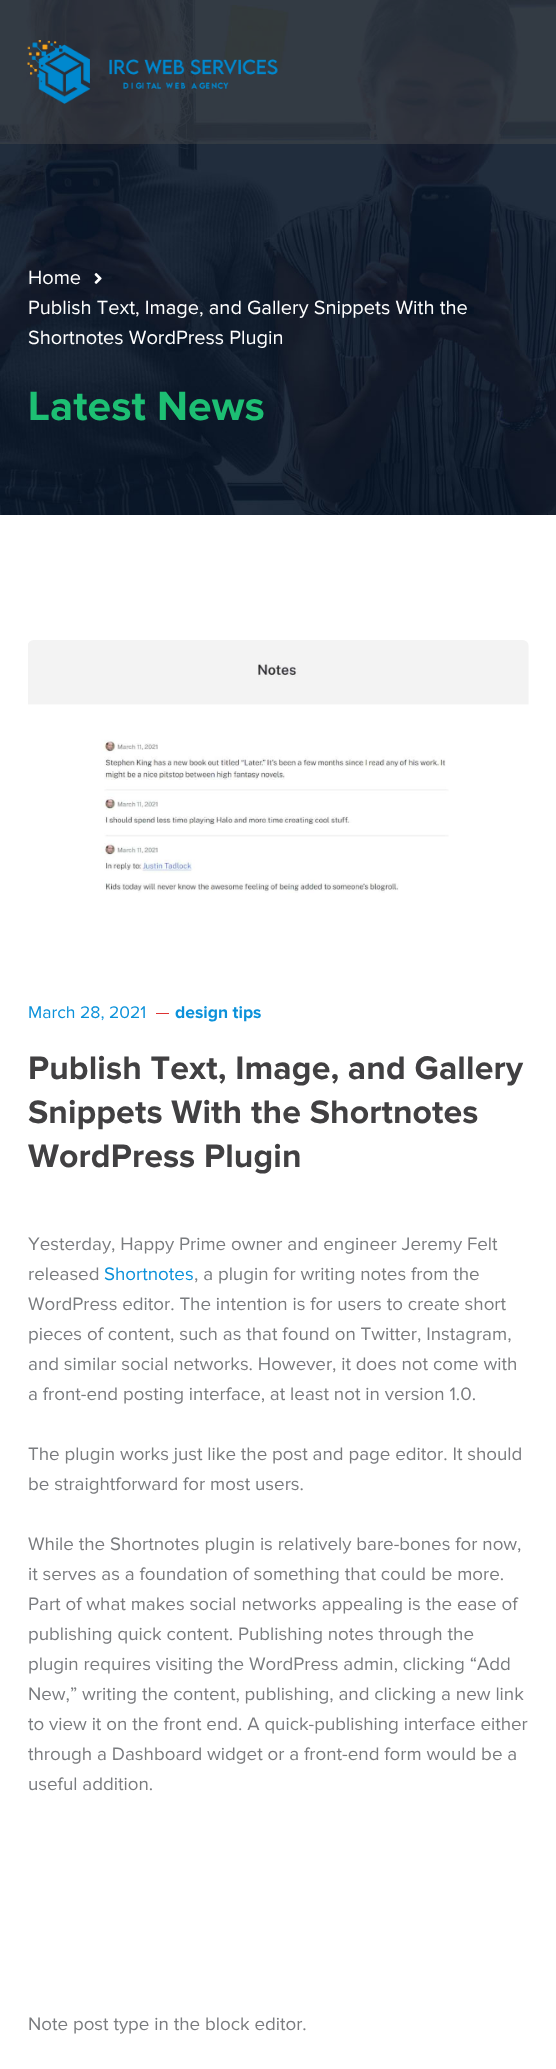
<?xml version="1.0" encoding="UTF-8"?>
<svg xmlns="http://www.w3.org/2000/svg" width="556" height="2069">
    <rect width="100%" height="100%" fill="#FFFFFF"/>
    <image x="0" y="0" width="556" height="515" href="img_02.png"/>
    <rect x="0" y="0" width="556" height="144" fill="#515151" fill-opacity="0.4"/>
    <image x="27" y="40" width="251" height="64" href="img_01.png"/>
    <text x="28" y="284" font-family="Proxima Nova" font-size="20" fill="#FFFFFF">Home</text>
    <image x="94" y="273" width="8" height="11" href="img_03.png"/>
    <text font-family="Proxima Nova" font-size="20" fill="#FFFFFF">
        <tspan x="28" y="314">Publish Text, Image, and Gallery Snippets With the</tspan>
        <tspan x="28" y="344">Shortnotes WordPress Plugin</tspan>
    </text>
    <text x="28" y="420" font-family="Proxima Nova" font-size="42.5" font-weight="700" letter-spacing="0.1" fill="#1DBF73">Latest News</text>
    <image x="28" y="640" width="501" height="253" href="img_04.png"/>
    <text x="28" y="1018" font-family="Proxima Nova" font-size="17.5" fill="#0B91DA">March 28, 2021</text>
    <rect x="156" y="1013" width="13" height="1" fill="#DD3333"/>
    <text x="175" y="1018" font-family="Proxima Nova" font-size="17.5" font-weight="700" fill="#0B91DA">design tips</text>
    <text font-family="Proxima Nova" font-size="33.75" font-weight="700" letter-spacing="0.1" fill="#414042">
        <tspan x="28" y="1079">Publish Text, Image, and Gallery</tspan>
        <tspan x="28" y="1123">Snippets With the Shortnotes</tspan>
        <tspan x="28" y="1167">WordPress Plugin</tspan>
    </text>
    <text font-family="Proxima Nova" font-size="18.75" fill="#7A7C7F">
        <tspan x="28" y="1250">Yesterday, Happy Prime owner and engineer Jeremy Felt</tspan>
        <tspan x="28" y="1280">released</tspan>
    </text>
    <text x="104" y="1280" font-family="Proxima Nova" font-size="18.75" fill="#0B91DA">Shortnotes</text>
    <text x="194" y="1280" font-family="Proxima Nova" font-size="18.75" fill="#7A7C7F">, a plugin for writing notes from the</text>
    <text font-family="Proxima Nova" font-size="18.75" fill="#7A7C7F">
        <tspan x="28" y="1310">WordPress editor. The intention is for users to create short</tspan>
        <tspan x="28" y="1340">pieces of content, such as that found on Twitter, Instagram,</tspan>
        <tspan x="28" y="1370">and similar social networks. However, it does not come with</tspan>
        <tspan x="28" y="1400">a front-end posting interface, at least not in version 1.0.</tspan>
    </text>
    <text font-family="Proxima Nova" font-size="18.75" fill="#7A7C7F">
        <tspan x="28" y="1460">The plugin works just like the post and page editor. It should</tspan>
        <tspan x="28" y="1490">be straightforward for most users.</tspan>
    </text>
    <text font-family="Proxima Nova" font-size="18.75" fill="#7A7C7F">
        <tspan x="28" y="1550">While the Shortnotes plugin is relatively bare-bones for now,</tspan>
        <tspan x="28" y="1580">it serves as a foundation of something that could be more.</tspan>
        <tspan x="28" y="1610">Part of what makes social networks appealing is the ease of</tspan>
        <tspan x="28" y="1640">publishing quick content. Publishing notes through the</tspan>
        <tspan x="28" y="1670">plugin requires visiting the WordPress admin, clicking “Add</tspan>
        <tspan x="28" y="1700">New,” writing the content, publishing, and clicking a new link</tspan>
        <tspan x="28" y="1730">to view it on the front end. A quick-publishing interface either</tspan>
        <tspan x="28" y="1760">through a Dashboard widget or a front-end form would be a</tspan>
        <tspan x="28" y="1790">useful addition.</tspan>
    </text>
    <text x="28" y="2030" font-family="Proxima Nova" font-size="18.75" fill="#7A7C7F">Note post type in the block editor.</text>
</svg>
